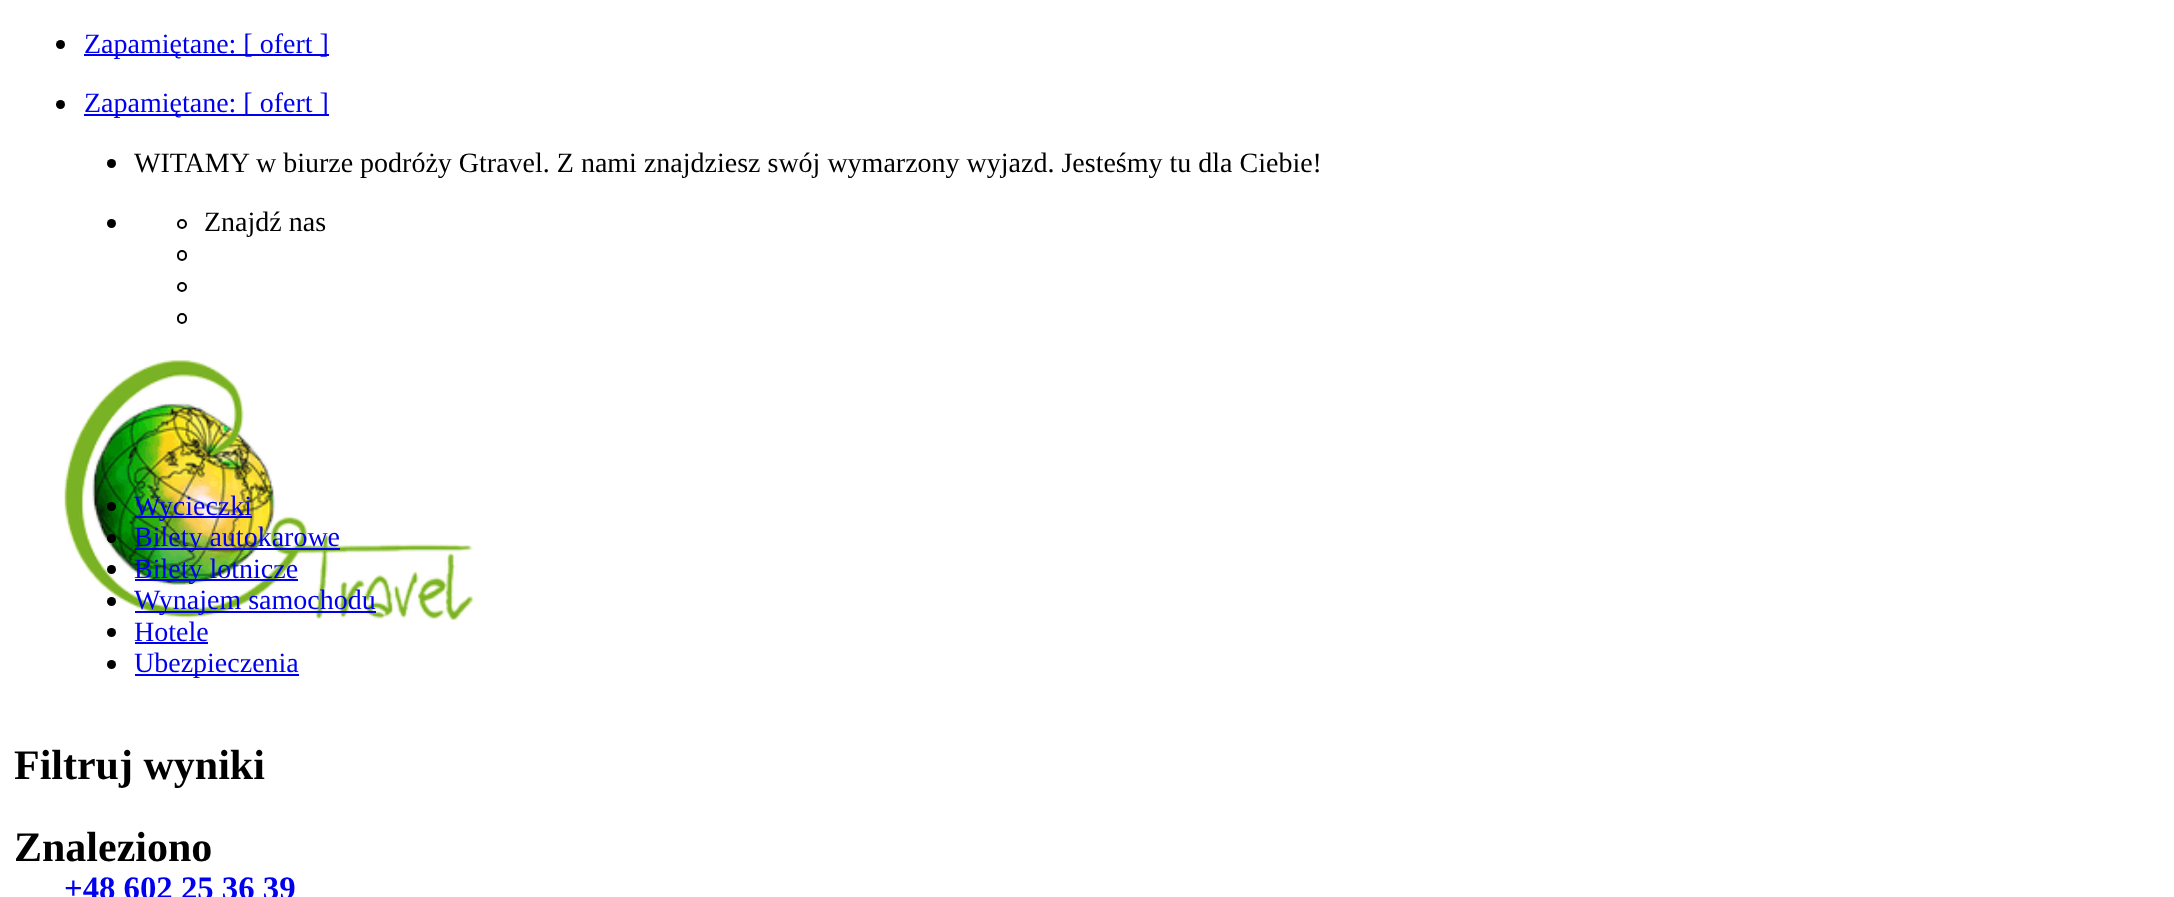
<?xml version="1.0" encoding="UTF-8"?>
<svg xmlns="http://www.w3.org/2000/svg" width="2174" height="897">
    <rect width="100%" height="100%" fill="#FFFFFF"/>
    <circle cx="60.5" cy="44.5" r="4.5" fill="#000000"/>
    <rect x="84" y="54" width="245" height="2" fill="#0000EE"/>
    <text x="84" y="53" font-family="Liberation Serif" font-size="28" fill="#0000EE">Zapamiętane: [ ofert ]</text>
    <circle cx="60.5" cy="104.5" r="4.5" fill="#000000"/>
    <rect x="84" y="114" width="245" height="2" fill="#0000EE"/>
    <text x="84" y="112" font-family="Liberation Serif" font-size="28" fill="#0000EE">Zapamiętane: [ ofert ]</text>
    <circle cx="111.5" cy="163.5" r="4.5" fill="#000000"/>
    <text x="134" y="172" font-family="Liberation Serif" font-size="28" fill="#000000">WITAMY w biurze podróży Gtravel. Z nami znajdziesz swój wymarzony wyjazd. Jesteśmy tu dla Ciebie!</text>
    <circle cx="111.5" cy="223.5" r="4.5" fill="#000000"/>
    <circle cx="182" cy="224" r="4" fill="none" stroke="#000000" stroke-width="2"/>
    <text x="204" y="231" font-family="Liberation Serif" font-size="28" fill="#000000">Znajdź nas</text>
    <rect x="178" y="251" width="8" height="9" rx="4" fill="none" stroke="#000000" stroke-width="2"/>
    <circle cx="182" cy="287" r="4" fill="none" stroke="#000000" stroke-width="2"/>
    <rect x="178" y="314" width="8" height="9" rx="4" fill="none" stroke="#000000" stroke-width="2"/>
    <image x="64" y="360" width="412" height="260" href="img_01.png"/>
    <text x="64" y="899" font-family="Liberation Serif" font-size="32.75" font-weight="700" fill="#0000EE">+48 602 25 36 39</text>
    <circle cx="111.5" cy="506.5" r="4.5" fill="#000000"/>
    <rect x="135" y="516" width="117" height="2" fill="#0000EE"/>
    <text x="134" y="515" font-family="Liberation Serif" font-size="28" fill="#0000EE">Wycieczki</text>
    <circle cx="111.5" cy="538.5" r="4.5" fill="#000000"/>
    <rect x="135" y="548" width="205" height="2" fill="#0000EE"/>
    <text x="134" y="546" font-family="Liberation Serif" font-size="28" fill="#0000EE">Bilety autokarowe</text>
    <circle cx="111.5" cy="569.5" r="4.5" fill="#000000"/>
    <rect x="135" y="579" width="163" height="2" fill="#0000EE"/>
    <text x="134" y="578" font-family="Liberation Serif" font-size="28" fill="#0000EE">Bilety lotnicze</text>
    <circle cx="111.5" cy="601.5" r="4.5" fill="#000000"/>
    <rect x="135" y="611" width="241" height="2" fill="#0000EE"/>
    <text x="134" y="609" font-family="Liberation Serif" font-size="28" fill="#0000EE">Wynajem samochodu</text>
    <circle cx="111.5" cy="632.5" r="4.5" fill="#000000"/>
    <text x="134" y="641" font-family="Liberation Serif" font-size="28" fill="#0000EE">Hotele</text>
    <rect x="135" y="642" width="73" height="2" fill="#0000EE"/>
    <circle cx="111.5" cy="664.5" r="4.5" fill="#000000"/>
    <rect x="135" y="674" width="164" height="2" fill="#0000EE"/>
    <text x="134" y="672" font-family="Liberation Serif" font-size="28" fill="#0000EE">Ubezpieczenia</text>
    <text font-family="Liberation Serif" font-size="42" font-weight="700" fill="#000000">
        <tspan x="14" y="779">Filtruj wyniki</tspan>
        <tspan x="14" y="861">Znaleziono</tspan>
    </text>
</svg>
